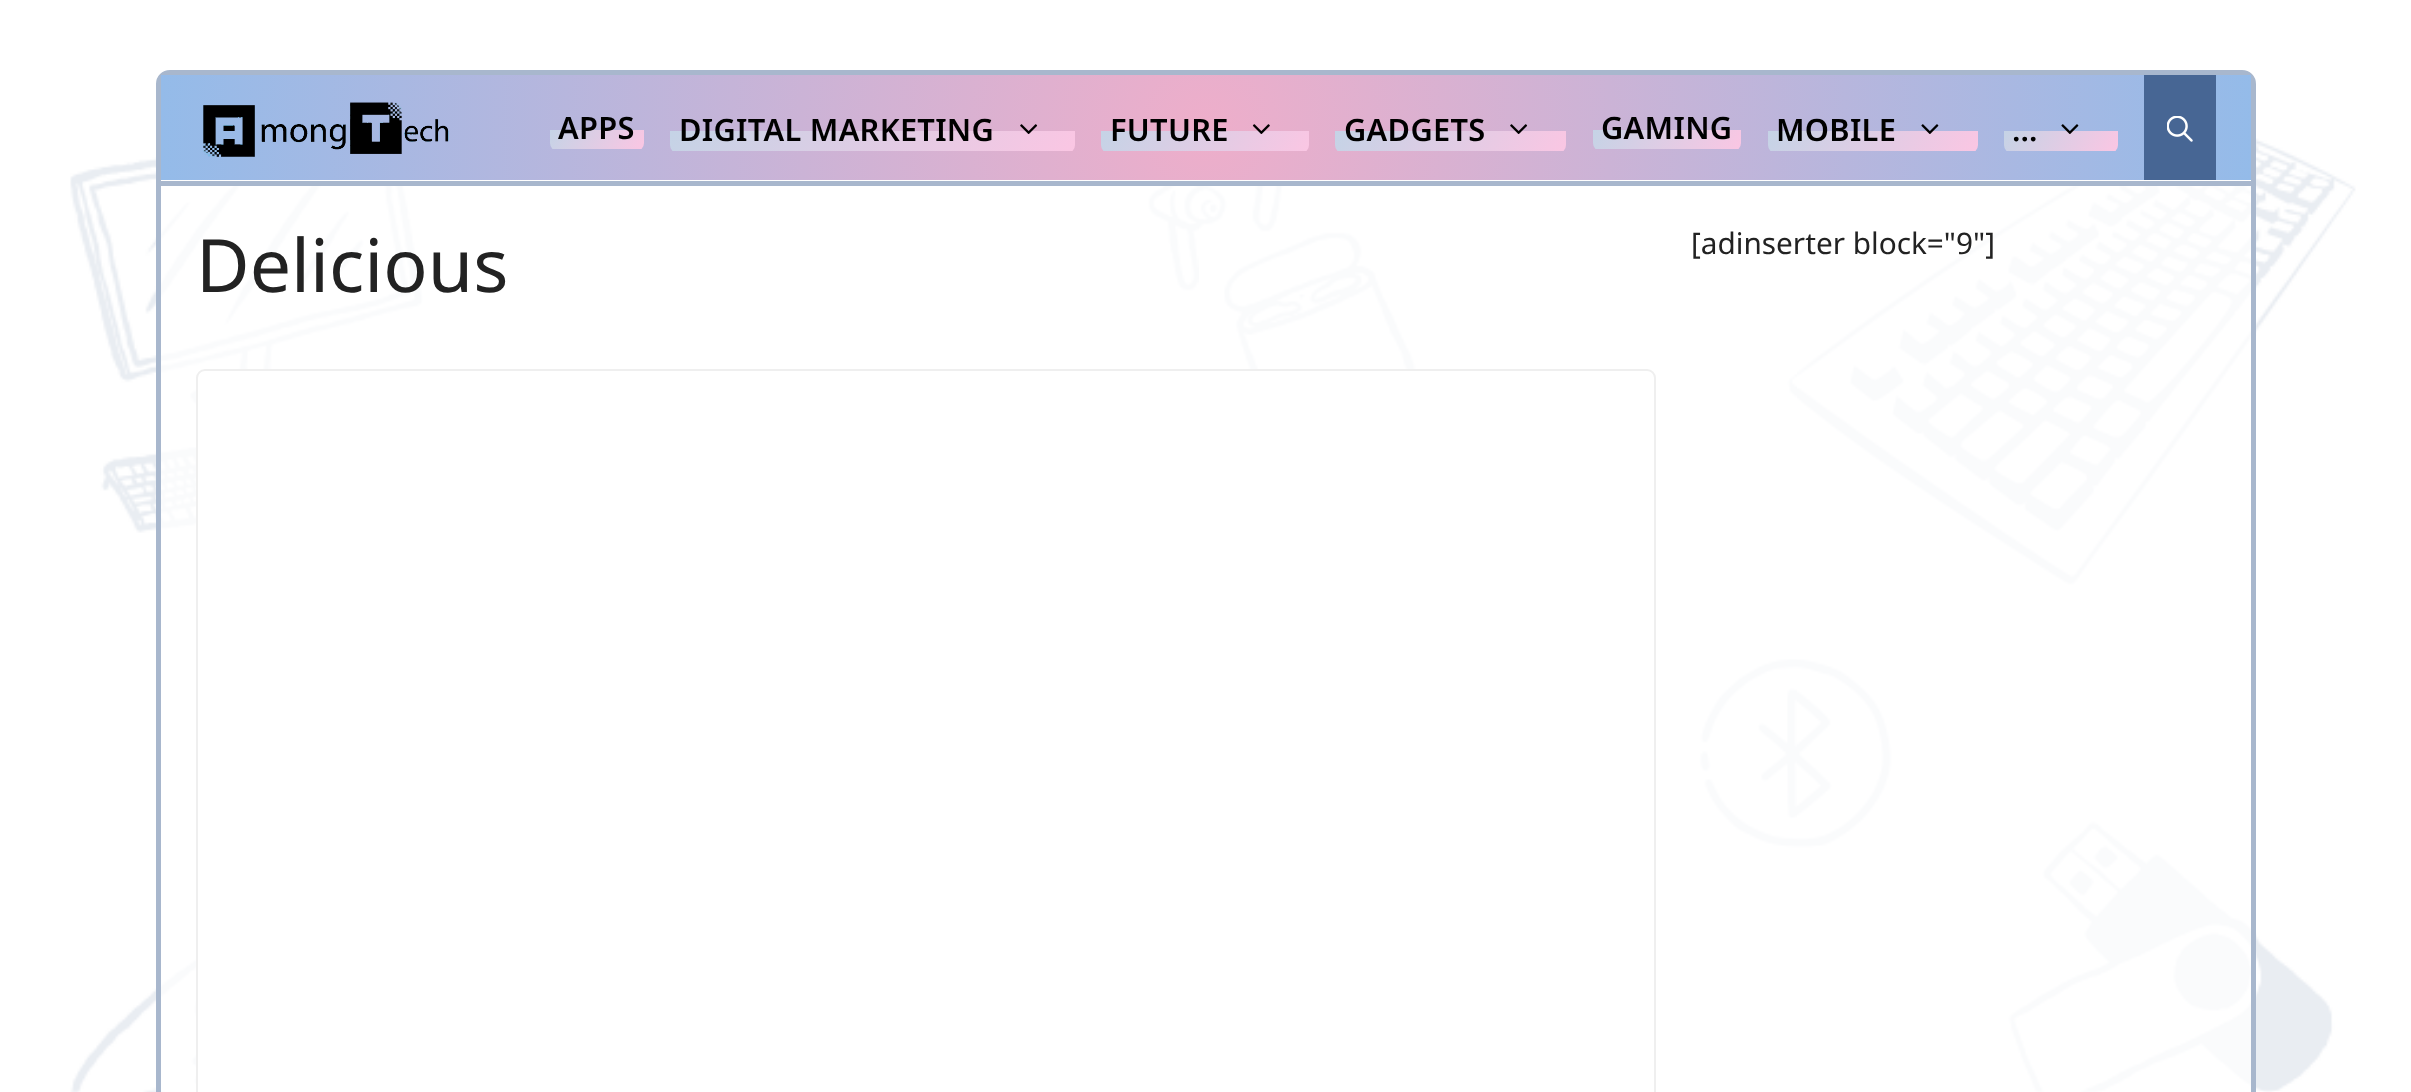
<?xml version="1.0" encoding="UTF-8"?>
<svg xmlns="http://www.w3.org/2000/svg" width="2411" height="1092">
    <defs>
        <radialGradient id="g1" gradientUnits="userSpaceOnUse" cx="1206" cy="128" r="1046"><stop offset="0" stop-color="#EEAECA"/><stop offset="1" stop-color="#94BBE9"/></radialGradient>
        <clipPath id="clip1"><rect x="550" y="103" width="94" height="49" rx="9"/></clipPath>
        <linearGradient id="g2" gradientUnits="userSpaceOnUse" x1="557" y1="117" x2="636" y2="162"><stop offset="0" stop-color="#C5D3E6"/><stop offset="1" stop-color="#FAC6E3"/></linearGradient>
        <clipPath id="clip2"><rect x="670" y="102" width="405" height="52" rx="9"/></clipPath>
        <linearGradient id="g3" gradientUnits="userSpaceOnUse" x1="717" y1="51" x2="1028" y2="231"><stop offset="0" stop-color="#C5D3E6"/><stop offset="1" stop-color="#FAC6E3"/></linearGradient>
        <clipPath id="clip3"><rect x="1101" y="102" width="208" height="52" rx="9"/></clipPath>
        <linearGradient id="g4" gradientUnits="userSpaceOnUse" x1="1123" y1="93" x2="1287" y2="188"><stop offset="0" stop-color="#C5D3E6"/><stop offset="1" stop-color="#FAC6E3"/></linearGradient>
        <clipPath id="clip4"><rect x="1335" y="102" width="231" height="52" rx="9"/></clipPath>
        <linearGradient id="g5" gradientUnits="userSpaceOnUse" x1="1360" y1="88" x2="1541" y2="193"><stop offset="0" stop-color="#C5D3E6"/><stop offset="1" stop-color="#FAC6E3"/></linearGradient>
        <clipPath id="clip5"><rect x="1593" y="103" width="148" height="49" rx="9"/></clipPath>
        <linearGradient id="g6" gradientUnits="userSpaceOnUse" x1="1607" y1="105" x2="1727" y2="174"><stop offset="0" stop-color="#C5D3E6"/><stop offset="1" stop-color="#FAC6E3"/></linearGradient>
        <clipPath id="clip6"><rect x="1768" y="102" width="210" height="52" rx="9"/></clipPath>
        <linearGradient id="g7" gradientUnits="userSpaceOnUse" x1="1790" y1="93" x2="1955" y2="188"><stop offset="0" stop-color="#C5D3E6"/><stop offset="1" stop-color="#FAC6E3"/></linearGradient>
        <clipPath id="clip7"><rect x="2004" y="102" width="114" height="52" rx="9"/></clipPath>
        <linearGradient id="g8" gradientUnits="userSpaceOnUse" x1="2014" y1="114" x2="2107" y2="168"><stop offset="0" stop-color="#C5D3E6"/><stop offset="1" stop-color="#FAC6E3"/></linearGradient>
    </defs>
    <rect width="100%" height="100%" fill="#FFFFFF"/>
    <image x="70" y="119" width="2286" height="973" href="img_01.png"/>
    <path d="M 170 72.5 H 2242 C 2248.5 72.5 2253.5 77.5 2253.5 84 V 183.5 H 158.5 V 84 C 158.5 77.5 163.5 72.5 170 72.5 Z" fill="#FFFFFF" stroke="#A8B7CD" stroke-width="5"/>
    <rect x="161" y="75" width="2090" height="105" fill="url(#g1)"/>
    <image x="203" y="102" width="246" height="55" href="img_02.png"/>
    <g clip-path="url(#clip1)">
        <rect x="550" y="130" width="94" height="19" fill="url(#g2)"/>
    </g>
    <text x="558" y="139" font-family="Noto Sans" font-size="30.75" font-weight="600" letter-spacing="0.3" fill="#000000">APPS</text>
    <g clip-path="url(#clip2)">
        <rect x="670" y="131" width="405" height="20" fill="url(#g3)"/>
    </g>
    <text x="679" y="141" font-family="Noto Sans" font-size="30.75" font-weight="600" letter-spacing="0.3" fill="#000000">DIGITAL MARKETING</text>
    <image x="1020" y="124" width="18" height="10" href="img_03.png"/>
    <g clip-path="url(#clip3)">
        <rect x="1101" y="131" width="208" height="20" fill="url(#g4)"/>
    </g>
    <text x="1110" y="141" font-family="Noto Sans" font-size="30.75" font-weight="600" letter-spacing="0.3" fill="#000000">FUTURE</text>
    <image x="1252" y="124" width="18" height="10" href="img_04.png"/>
    <g clip-path="url(#clip4)">
        <rect x="1335" y="131" width="231" height="20" fill="url(#g5)"/>
    </g>
    <text x="1344" y="141" font-family="Noto Sans" font-size="30.75" font-weight="600" letter-spacing="0.3" fill="#000000">GADGETS</text>
    <image x="1510" y="124" width="18" height="10" href="img_05.png"/>
    <g clip-path="url(#clip5)">
        <rect x="1593" y="130" width="148" height="19" fill="url(#g6)"/>
    </g>
    <text x="1601" y="139" font-family="Noto Sans" font-size="30.75" font-weight="600" letter-spacing="0.3" fill="#000000">GAMING</text>
    <g clip-path="url(#clip6)">
        <rect x="1768" y="131" width="210" height="20" fill="url(#g7)"/>
    </g>
    <text x="1776" y="141" font-family="Noto Sans" font-size="30.75" font-weight="600" letter-spacing="0.3" fill="#000000">MOBILE</text>
    <image x="1921" y="124" width="18" height="10" href="img_06.png"/>
    <g clip-path="url(#clip7)">
        <rect x="2004" y="131" width="114" height="20" fill="url(#g8)"/>
    </g>
    <image x="2061" y="124" width="18" height="10" href="img_07.png"/>
    <text x="2012" y="141" font-family="Noto Sans" font-size="30.75" font-weight="600" letter-spacing="0.3" fill="#000000">…</text>
    <rect x="2144" y="75" width="72" height="105" fill="#476694"/>
    <image x="2167" y="116" width="26" height="26" href="img_08.png"/>
    <rect x="161" y="186" width="2090" height="906" fill="#FFFFFF" fill-opacity="0.75"/>
    <rect x="2251" y="186" width="5" height="906" fill="#A8B7CD"/>
    <rect x="156" y="186" width="5" height="906" fill="#A8B7CD"/>
    <text x="196" y="292" font-family="Noto Sans" font-size="73.5" fill="#222222">Delicious</text>
    <rect x="197" y="370" width="1458" height="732" rx="8" fill="#FFFFFF" stroke="#EFEFEF" stroke-width="2"/>
    <text x="1691" y="254" font-family="Noto Sans" font-size="29.75" fill="#222222">[adinserter block="9"]</text>
</svg>
